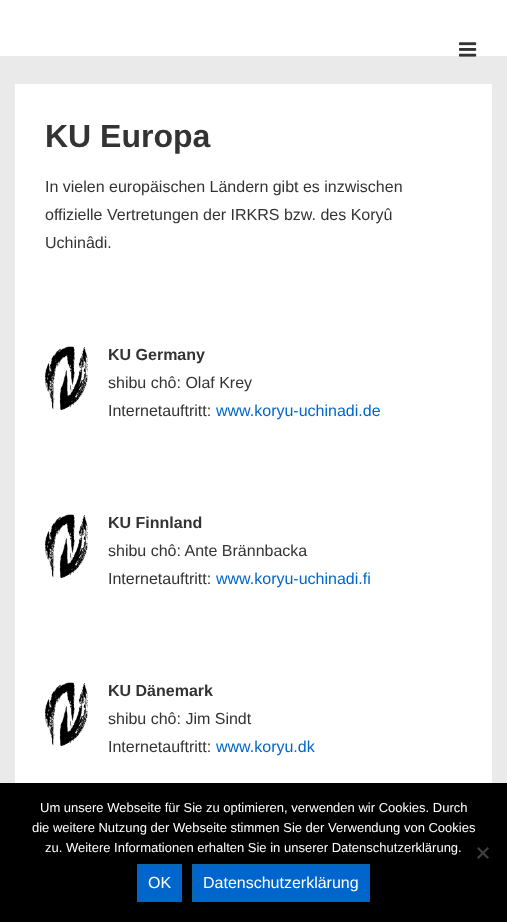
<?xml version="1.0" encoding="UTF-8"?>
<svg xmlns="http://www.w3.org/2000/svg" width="507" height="922">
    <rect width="100%" height="100%" fill="#EAEAEA"/>
    <rect x="0" y="0" width="507" height="56" fill="#FFFFFF"/>
    <image x="459" y="42" width="18" height="15" href="img_01.png"/>
    <rect x="15" y="84" width="477" height="699" fill="#FFFFFF"/>
    <text x="45" y="147" font-family="Liberation Sans" font-size="32" font-weight="700" fill="#333333">KU Europa</text>
    <text font-family="Liberation Sans" font-size="16" fill="#333333">
        <tspan x="45" y="192">In vielen europäischen Ländern gibt es inzwischen</tspan>
        <tspan x="45" y="220">offizielle Vertretungen der IRKRS bzw. des Koryû</tspan>
        <tspan x="45" y="248">Uchinâdi.</tspan>
    </text>
    <image x="45" y="346" width="43" height="64" href="img_02.png"/>
    <text x="108" y="360" font-family="Liberation Sans" font-size="16" font-weight="700" fill="#333333">KU Germany</text>
    <text font-family="Liberation Sans" font-size="16" fill="#333333">
        <tspan x="108" y="388">shibu chô: Olaf Krey</tspan>
        <tspan x="108" y="416">Internetauftritt:</tspan>
    </text>
    <text x="216" y="416" font-family="Liberation Sans" font-size="16" fill="#0066CC">www.koryu-uchinadi.de</text>
    <image x="45" y="514" width="43" height="64" href="img_02.png"/>
    <text x="108" y="528" font-family="Liberation Sans" font-size="16" font-weight="700" fill="#333333">KU Finnland</text>
    <text font-family="Liberation Sans" font-size="16" fill="#333333">
        <tspan x="108" y="556">shibu chô: Ante Brännbacka</tspan>
        <tspan x="108" y="584">Internetauftritt:</tspan>
    </text>
    <text x="216" y="584" font-family="Liberation Sans" font-size="16" fill="#0066CC">www.koryu-uchinadi.fi</text>
    <image x="45" y="682" width="43" height="64" href="img_02.png"/>
    <text x="108" y="696" font-family="Liberation Sans" font-size="16" font-weight="700" fill="#333333">KU Dänemark</text>
    <text font-family="Liberation Sans" font-size="16" fill="#333333">
        <tspan x="108" y="724">shibu chô: Jim Sindt</tspan>
        <tspan x="108" y="752">Internetauftritt:</tspan>
    </text>
    <text x="216" y="752" font-family="Liberation Sans" font-size="16" fill="#0066CC">www.koryu.dk</text>
    <rect x="0" y="783" width="507" height="139" fill="#000000"/>
    <text x="40" y="812" font-family="Liberation Sans" font-size="13" fill="#FFFFFF">Um unsere Webseite für Sie zu optimieren, verwenden wir Cookies. Durch</text>
    <text x="32" y="832" font-family="Liberation Sans" font-size="13" fill="#FFFFFF">die weitere Nutzung der Webseite stimmen Sie der Verwendung von Cookies</text>
    <text x="45" y="852" font-family="Liberation Sans" font-size="13" fill="#FFFFFF">zu. Weitere Informationen erhalten Sie in unserer Datenschutzerklärung.</text>
    <path d="M 487.5 847 L 489 848.5 L 478.5 859 L 477 857.5 Z" fill="#404040"/>
    <path d="M 477 848.5 L 478.5 847 L 489 857.5 L 487.5 859 Z" fill="#404040"/>
    <rect x="137.5" y="864.5" width="44" height="37" fill="#0066CC" stroke="#10659C"/>
    <text x="148" y="888" font-family="Liberation Sans" font-size="16" fill="#FFFFFF">OK</text>
    <rect x="192.5" y="864.5" width="177" height="37" fill="#0066CC" stroke="#10659C"/>
    <text x="203" y="888" font-family="Liberation Sans" font-size="16" fill="#FFFFFF">Datenschutzerklärung</text>
</svg>
